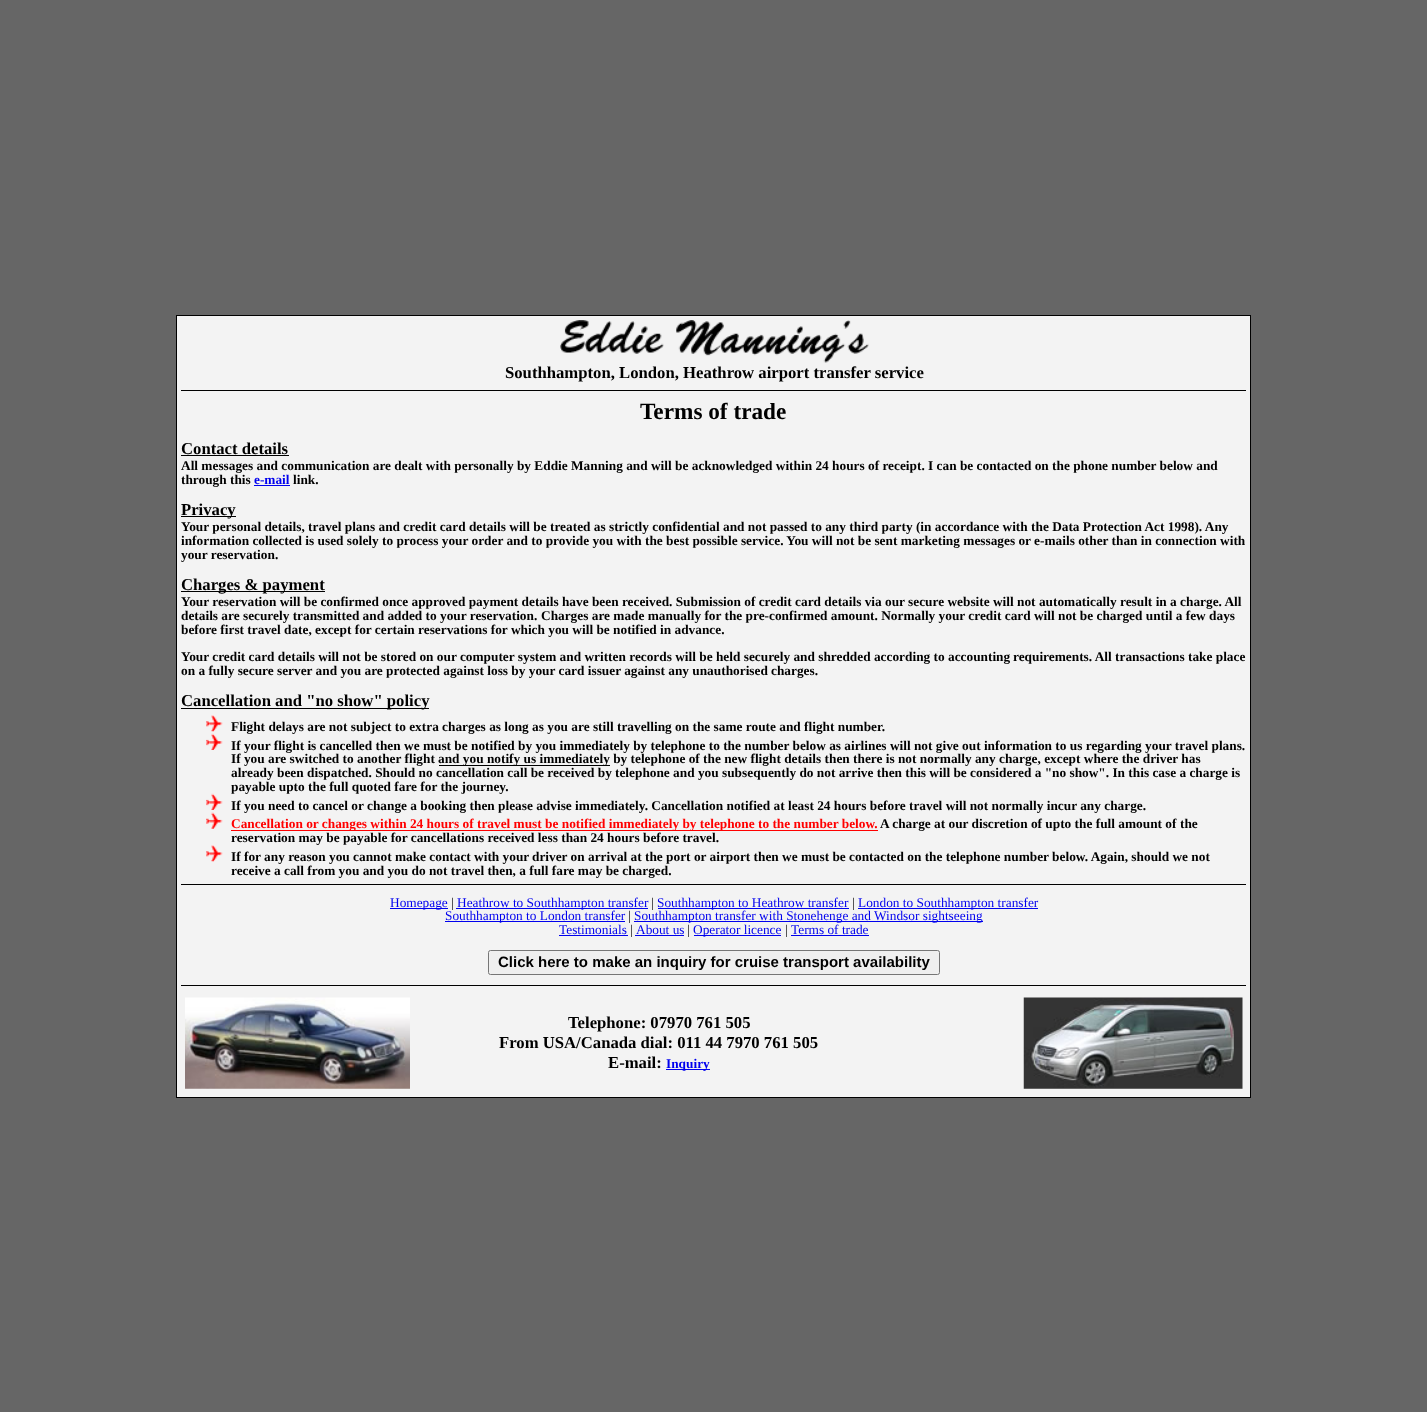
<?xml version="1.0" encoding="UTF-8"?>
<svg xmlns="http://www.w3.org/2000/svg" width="1427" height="1412">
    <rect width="100%" height="100%" fill="#666666"/>
    <rect x="176.5" y="315.5" width="1074" height="782" fill="#F3F3F3" stroke="#000000"/>
    <image x="560" y="320" width="309" height="43" href="img_01.png"/>
    <text x="505" y="378" font-family="Liberation Serif" font-size="16.7" font-weight="700" fill="#000000">Southhampton, London, Heathrow airport transfer service</text>
    <rect x="181" y="390" width="1065" height="1" fill="#000000"/>
    <text x="640" y="419" font-family="Liberation Serif" font-size="23.25" font-weight="700" fill="#000000">Terms of trade</text>
    <text x="181" y="454" font-family="Liberation Serif" font-size="16.7" font-weight="700" fill="#000000">Contact details</text>
    <rect x="181" y="455" width="108" height="1" fill="#000000"/>
    <text font-family="Liberation Serif" font-size="13.33" font-weight="700" fill="#000000">
        <tspan x="181" y="470">All messages and communication are dealt with personally by Eddie Manning and will be acknowledged within 24 hours of receipt. I can be contacted on the phone number below and</tspan>
        <tspan x="181" y="484">through this</tspan>
    </text>
    <text x="254" y="484" font-family="Liberation Serif" font-size="13.33" font-weight="700" fill="#0000EE">e-mail</text>
    <rect x="254" y="485" width="36" height="1" fill="#0000EE"/>
    <text x="293" y="484" font-family="Liberation Serif" font-size="13.33" font-weight="700" fill="#000000">link.</text>
    <rect x="181" y="516" width="55" height="1" fill="#000000"/>
    <text x="181" y="515" font-family="Liberation Serif" font-size="16.7" font-weight="700" fill="#000000">Privacy</text>
    <text font-family="Liberation Serif" font-size="13.33" font-weight="700" fill="#000000">
        <tspan x="181" y="531">Your personal details, travel plans and credit card details will be treated as strictly confidential and not passed to any third party (in accordance with the Data Protection Act 1998). Any</tspan>
        <tspan x="181" y="545">information collected is used solely to process your order and to provide you with the best possible service. You will not be sent marketing messages or e-mails other than in connection with</tspan>
        <tspan x="181" y="559">your reservation.</tspan>
    </text>
    <rect x="181" y="591" width="144" height="1" fill="#000000"/>
    <text x="181" y="590" font-family="Liberation Serif" font-size="16.7" font-weight="700" fill="#000000">Charges &amp; payment</text>
    <text font-family="Liberation Serif" font-size="13.33" font-weight="700" fill="#000000">
        <tspan x="181" y="606">Your reservation will be confirmed once approved payment details have been received. Submission of credit card details via our secure website will not automatically result in a charge. All</tspan>
        <tspan x="181" y="620">details are securely transmitted and added to your reservation.</tspan>
    </text>
    <text x="541" y="620" font-family="Liberation Serif" font-size="13.33" font-weight="700" fill="#000000">Charges are made manually for the pre-confirmed amount. Normally your credit card will not be charged until a few days</text>
    <text x="181" y="634" font-family="Liberation Serif" font-size="13.33" font-weight="700" fill="#000000">before first travel date, except for certain reservations for which you will be notified in advance.</text>
    <text x="181" y="661" font-family="Liberation Serif" font-size="13.33" font-weight="700" fill="#000000">Your credit card details will not be stored on our computer system and written records will be held securely and shredded according to accounting</text>
    <text x="1013" y="661" font-family="Liberation Serif" font-size="13.33" font-weight="700" fill="#000000">requirements. All transactions take place</text>
    <text x="181" y="675" font-family="Liberation Serif" font-size="13.33" font-weight="700" fill="#000000">on a fully secure server and you are protected against loss by your card issuer against any unauthorised</text>
    <text x="771" y="675" font-family="Liberation Serif" font-size="13.33" font-weight="700" fill="#000000">charges.</text>
    <rect x="181" y="708" width="248" height="1" fill="#000000"/>
    <text x="181" y="706" font-family="Liberation Serif" font-size="16.7" font-weight="700" fill="#000000">Cancellation and "no show" policy</text>
    <image x="206" y="715" width="17" height="17" href="img_02.png"/>
    <text x="231" y="731" font-family="Liberation Serif" font-size="13.33" font-weight="700" fill="#000000">Flight delays are not subject to extra charges as long as you are still travelling on the same route and flight number.</text>
    <image x="206" y="733" width="17" height="17" href="img_03.png"/>
    <text font-family="Liberation Serif" font-size="13.33" font-weight="700" fill="#000000">
        <tspan x="231" y="750">If your flight is cancelled then we must be notified by you immediately by telephone to the number below as airlines will not give out information to us regarding your travel plans.</tspan>
        <tspan x="231" y="763">If you are switched to another flight</tspan>
    </text>
    <rect x="439" y="765" width="171" height="1" fill="#000000"/>
    <text x="438" y="763" font-family="Liberation Serif" font-size="13.33" font-weight="700" fill="#000000">and you notify us immediately by telephone of the new flight details then there is not normally any charge, except where the driver has</text>
    <text x="231" y="777" font-family="Liberation Serif" font-size="13.33" font-weight="700" fill="#000000">already been dispatched. Should no cancellation call be received by</text>
    <text x="615" y="777" font-family="Liberation Serif" font-size="13.33" font-weight="700" fill="#000000">telephone and you subsequently do not arrive then this will be considered a "no show". In this case a charge is</text>
    <text x="231" y="791" font-family="Liberation Serif" font-size="13.33" font-weight="700" fill="#000000">payable upto the full quoted fare for the journey.</text>
    <image x="206" y="793" width="17" height="17" href="img_03.png"/>
    <text x="231" y="810" font-family="Liberation Serif" font-size="13.33" font-weight="700" fill="#000000">If you need to cancel or change a booking then please advise immediately. Cancellation notified at least 24 hours before</text>
    <text x="909" y="810" font-family="Liberation Serif" font-size="13.33" font-weight="700" fill="#000000">travel will not normally incur any charge.</text>
    <image x="206" y="812" width="17" height="17" href="img_04.png"/>
    <rect x="231" y="830" width="647" height="1" fill="#FF0000"/>
    <text x="231" y="828" font-family="Liberation Serif" font-size="13.33" font-weight="700" fill="#FF0000">Cancellation or changes within 24 hours of travel must be notified immediately by telephone to the number below.</text>
    <text x="880" y="828" font-family="Liberation Serif" font-size="13.33" font-weight="700" fill="#000000">A charge at our discretion of upto the full amount of</text>
    <text x="1180" y="828" font-family="Liberation Serif" font-size="13.33" font-weight="700" fill="#000000">the</text>
    <text x="231" y="842" font-family="Liberation Serif" font-size="13.33" font-weight="700" fill="#000000">reservation may be payable for cancellations received less than 24 hours before travel.</text>
    <image x="206" y="845" width="17" height="17" href="img_02.png"/>
    <text x="231" y="861" font-family="Liberation Serif" font-size="13.33" font-weight="700" fill="#000000">If for any reason you cannot make contact with your</text>
    <text x="532" y="861" font-family="Liberation Serif" font-size="13.33" font-weight="700" fill="#000000">driver on arrival at the port or airport then we must be contacted on the telephone number below. Again, should we not</text>
    <text x="231" y="875" font-family="Liberation Serif" font-size="13.33" font-weight="700" fill="#000000">receive a call from you and you do not travel then, a full fare may be charged.</text>
    <rect x="181" y="884" width="1065" height="1" fill="#000000"/>
    <rect x="390" y="908" width="58" height="1" fill="#0000EE"/>
    <text x="390" y="907" font-family="Liberation Serif" font-size="13.33" fill="#0000EE">Homepage</text>
    <text x="451" y="907" font-family="Liberation Serif" font-size="13.33" fill="#000000">|</text>
    <rect x="456" y="908" width="192" height="1" fill="#0000EE"/>
    <text x="457" y="907" font-family="Liberation Serif" font-size="13.33" fill="#0000EE">Heathrow to Southhampton transfer</text>
    <text x="651" y="907" font-family="Liberation Serif" font-size="13.33" fill="#000000">|</text>
    <rect x="658" y="908" width="191" height="1" fill="#0000EE"/>
    <text x="657" y="907" font-family="Liberation Serif" font-size="13.33" fill="#0000EE">Southhampton to Heathrow transfer</text>
    <text x="852" y="907" font-family="Liberation Serif" font-size="13.33" fill="#000000">|</text>
    <rect x="858" y="908" width="180" height="1" fill="#0000EE"/>
    <text x="858" y="907" font-family="Liberation Serif" font-size="13.33" fill="#0000EE">London to Southhampton transfer</text>
    <rect x="445" y="921" width="180" height="1" fill="#0000EE"/>
    <text x="445" y="920" font-family="Liberation Serif" font-size="13.33" fill="#0000EE">Southhampton to London transfer</text>
    <text x="628" y="920" font-family="Liberation Serif" font-size="13.33" fill="#000000">|</text>
    <rect x="634" y="921" width="349" height="1" fill="#0000EE"/>
    <text x="634" y="920" font-family="Liberation Serif" font-size="13.33" fill="#0000EE">Southhampton transfer with Stonehenge and Windsor sightseeing</text>
    <text x="559" y="934" font-family="Liberation Serif" font-size="13.33" fill="#0000EE">Testimonials</text>
    <rect x="559" y="935" width="69" height="1" fill="#0000EE"/>
    <text x="630" y="934" font-family="Liberation Serif" font-size="13.33" fill="#000000">|</text>
    <text x="636" y="934" font-family="Liberation Serif" font-size="13.33" fill="#0000EE">About us</text>
    <rect x="635" y="935" width="49" height="1" fill="#0000EE"/>
    <text x="687" y="934" font-family="Liberation Serif" font-size="13.33" fill="#000000">|</text>
    <rect x="694" y="935" width="87" height="1" fill="#0000EE"/>
    <text x="693" y="934" font-family="Liberation Serif" font-size="13.33" fill="#0000EE">Operator licence</text>
    <text x="785" y="934" font-family="Liberation Serif" font-size="13.33" fill="#000000">|</text>
    <text x="791" y="934" font-family="Liberation Serif" font-size="13.33" fill="#0000EE">Terms of trade</text>
    <rect x="791" y="935" width="78" height="1" fill="#0000EE"/>
    <rect x="488.5" y="950.5" width="451" height="24" rx="2" fill="#EFEFEF" stroke="#767676"/>
    <text x="498" y="967" font-family="Liberation Sans" font-size="15" font-weight="700" fill="#000000">Click here to make an inquiry for cruise transport availability</text>
    <rect x="181" y="985" width="1065" height="1" fill="#000000"/>
    <image x="185" y="997" width="225" height="92" href="img_05.png"/>
    <text x="568" y="1028" font-family="Liberation Serif" font-size="16.7" font-weight="700" fill="#000000">Telephone: 07970 761 505</text>
    <text x="499" y="1048" font-family="Liberation Serif" font-size="16.7" font-weight="700" fill="#000000">From USA/Canada dial: 011 44 7970 761 505</text>
    <text x="608" y="1068" font-family="Liberation Serif" font-size="16.7" font-weight="700" fill="#000000">E-mail:</text>
    <rect x="666" y="1069" width="44" height="1" fill="#0000EE"/>
    <text x="666" y="1068" font-family="Liberation Serif" font-size="13.33" font-weight="700" fill="#0000EE">Inquiry</text>
    <image x="1023" y="997" width="220" height="92" href="img_06.png"/>
</svg>
